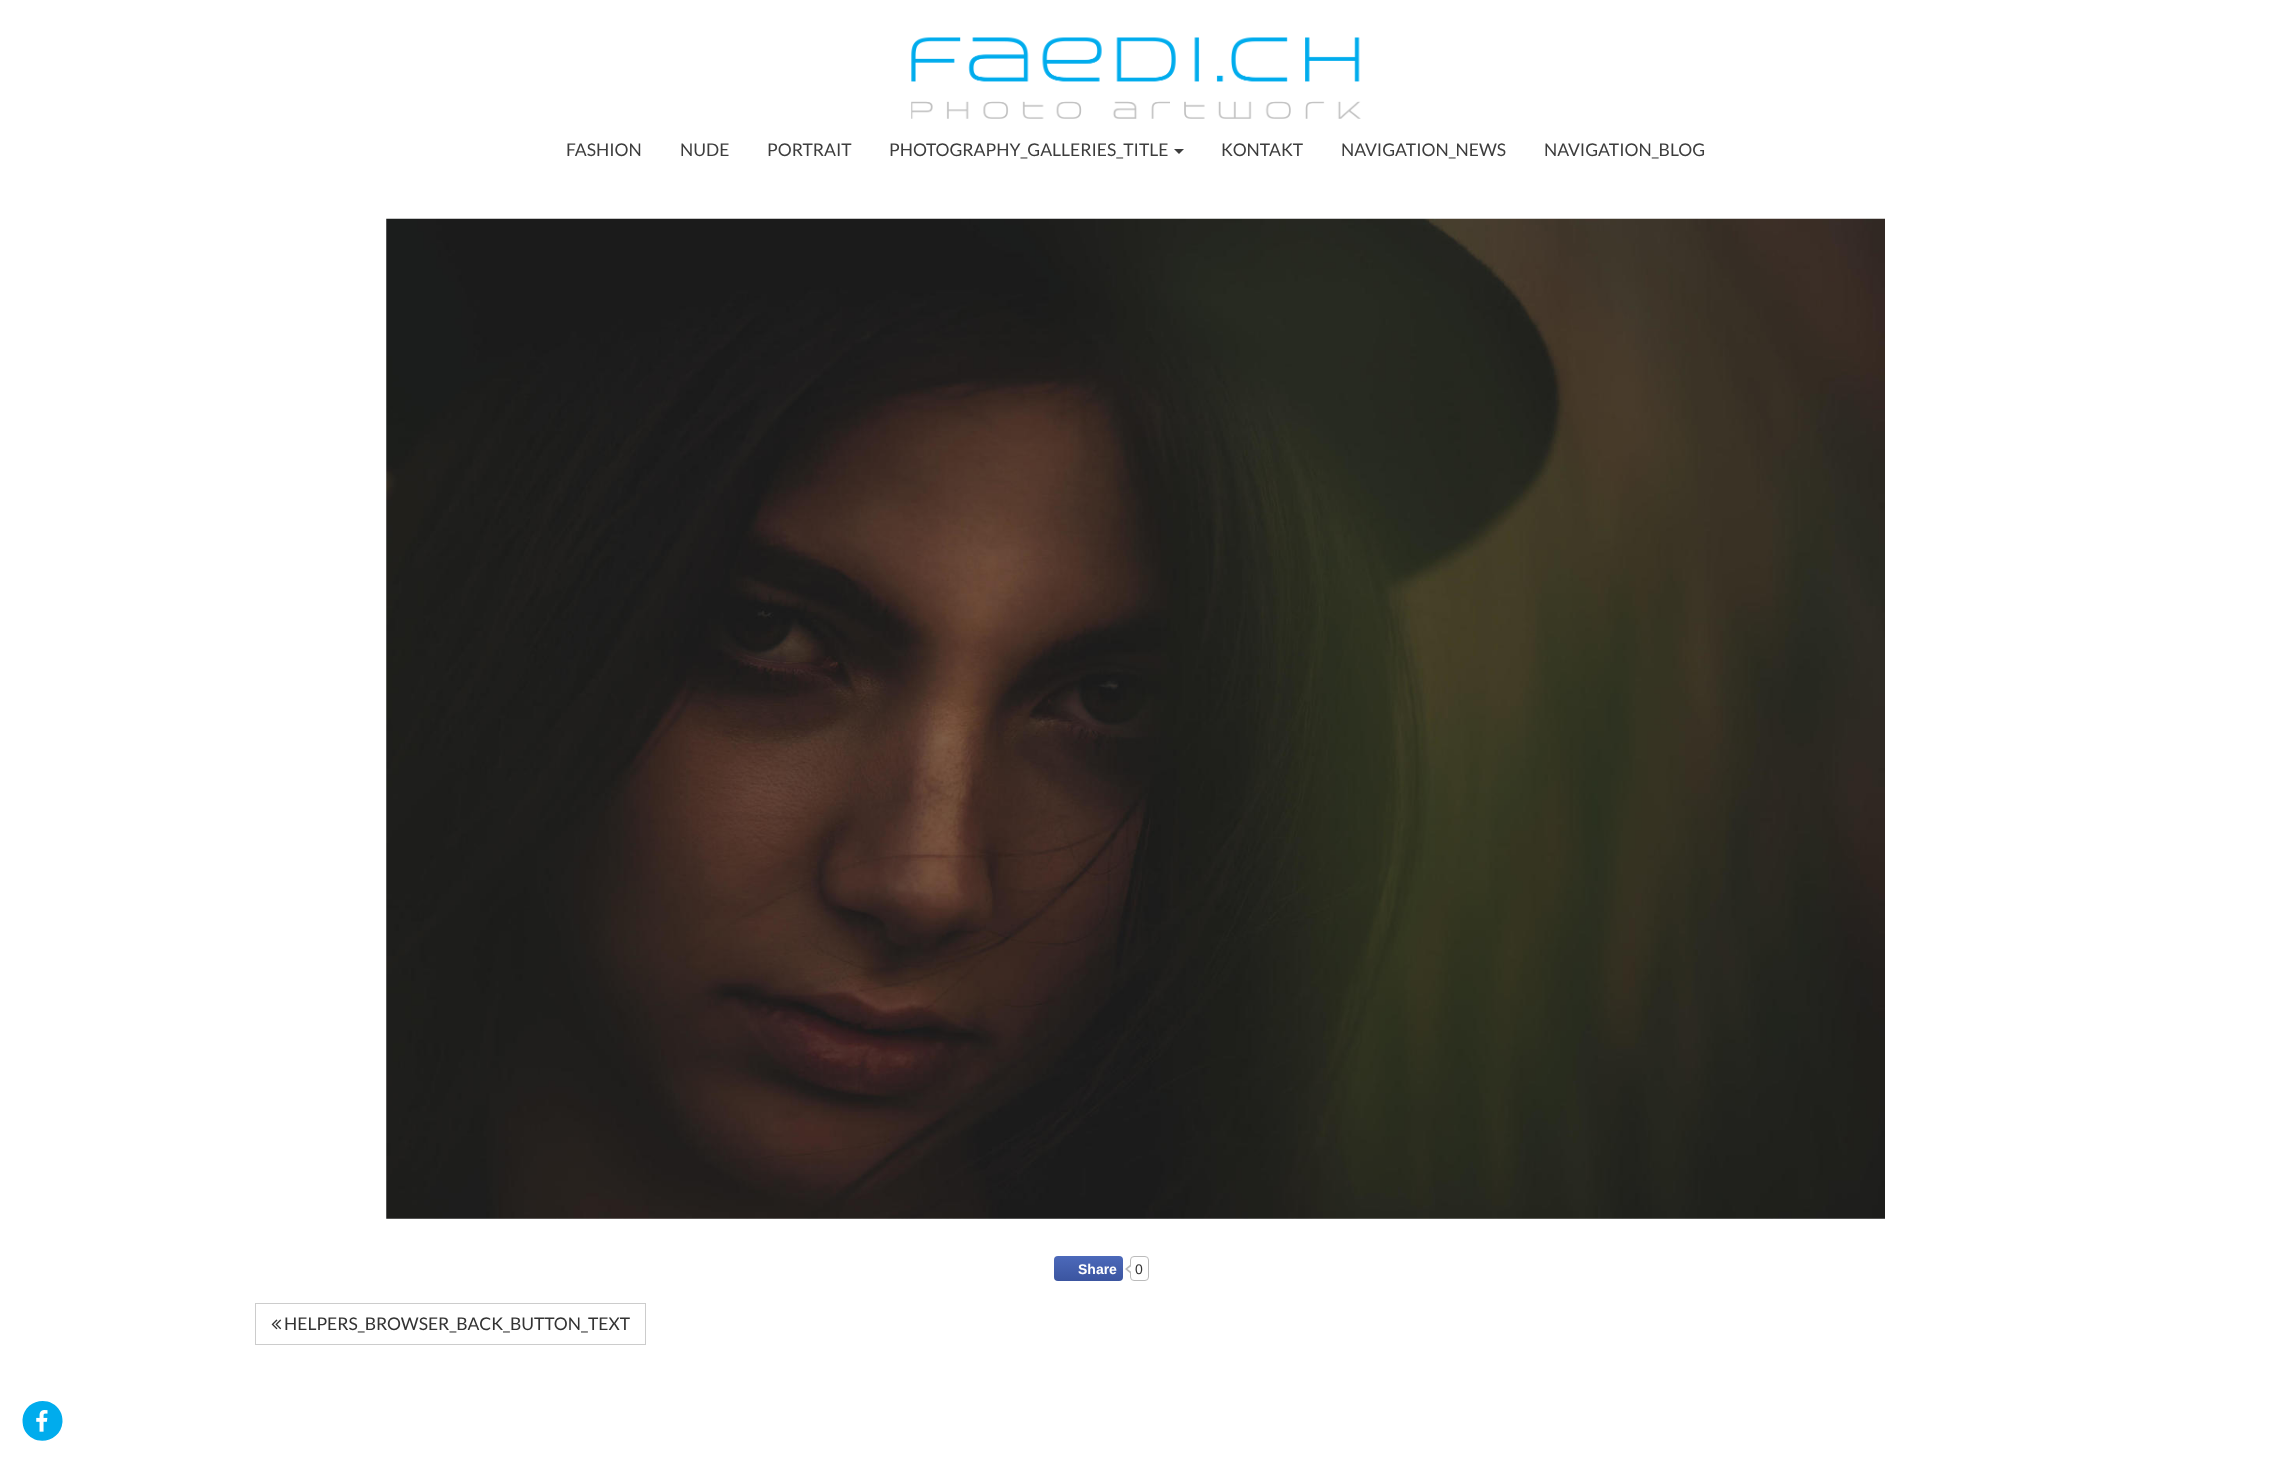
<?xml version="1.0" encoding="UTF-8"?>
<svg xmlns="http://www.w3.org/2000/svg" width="2271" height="1476">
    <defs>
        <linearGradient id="g1" gradientUnits="userSpaceOnUse" x1="1088" y1="1256" x2="1088" y2="1281"><stop offset="0" stop-color="#4C69BA"/><stop offset="1" stop-color="#3B55A0"/></linearGradient>
    </defs>
    <rect width="100%" height="100%" fill="#FFFFFF"/>
    <image x="911" y="37" width="450" height="82" href="img_01.png"/>
    <text x="566" y="156" font-family="Lato" font-size="17.5" fill="#3D3D3D">FASHION</text>
    <text x="680" y="156" font-family="Lato" font-size="17.5" fill="#3D3D3D">NUDE</text>
    <text x="767" y="156" font-family="Lato" font-size="17.5" fill="#3D3D3D">PORTRAIT</text>
    <text x="889" y="156" font-family="Lato" font-size="17.5" fill="#3D3D3D">PHOTOGRAPHY_GALLERIES_TITLE</text>
    <path d="M 1174 149 H 1184 L 1179 154 Z" fill="#3D3D3D"/>
    <text x="1221" y="156" font-family="Lato" font-size="17.5" fill="#3D3D3D">KONTAKT</text>
    <text x="1341" y="156" font-family="Lato" font-size="17.5" fill="#3D3D3D">NAVIGATION_NEWS</text>
    <text x="1544" y="156" font-family="Lato" font-size="17.5" fill="#3D3D3D">NAVIGATION_BLOG</text>
    <image x="386" y="218" width="1499" height="1001" href="img_02.png"/>
    <rect x="1054" y="1256" width="69" height="25" rx="4" fill="url(#g1)"/>
    <text x="1078" y="1274" font-family="Liberation Sans" font-size="14" font-weight="700" fill="#FFFFFF">Share</text>
    <rect x="1130.5" y="1256.5" width="18" height="24" rx="3.5" fill="none" stroke="#BBBBBB"/>
    <path d="M 1131 1264 V 1274 L 1125 1269 Z" fill="#BBBBBB"/>
    <path d="M 1134 1264 V 1274 L 1127.5 1269 Z" fill="#FFFFFF"/>
    <text x="1135" y="1274" font-family="Liberation Sans" font-size="14" fill="#333333">0</text>
    <rect x="255.5" y="1303.5" width="390" height="41" fill="none" stroke="#CCCCCC"/>
    <image x="271" y="1319" width="11" height="11" href="img_03.png"/>
    <text x="284" y="1330" font-family="Lato" font-size="17.5" fill="#333333">HELPERS_BROWSER_BACK_BUTTON_TEXT</text>
    <path d="M 60 1411 C 62 1414 62.5 1418 62.5 1422 C 61 1442 35 1447.5 25 1431 C 23 1427.5 22.5 1423.5 22.5 1419.5 C 24 1400 50 1394 60 1411 Z" fill="#00ACED"/>
    <image x="36" y="1410" width="12" height="22" href="img_04.png"/>
</svg>
